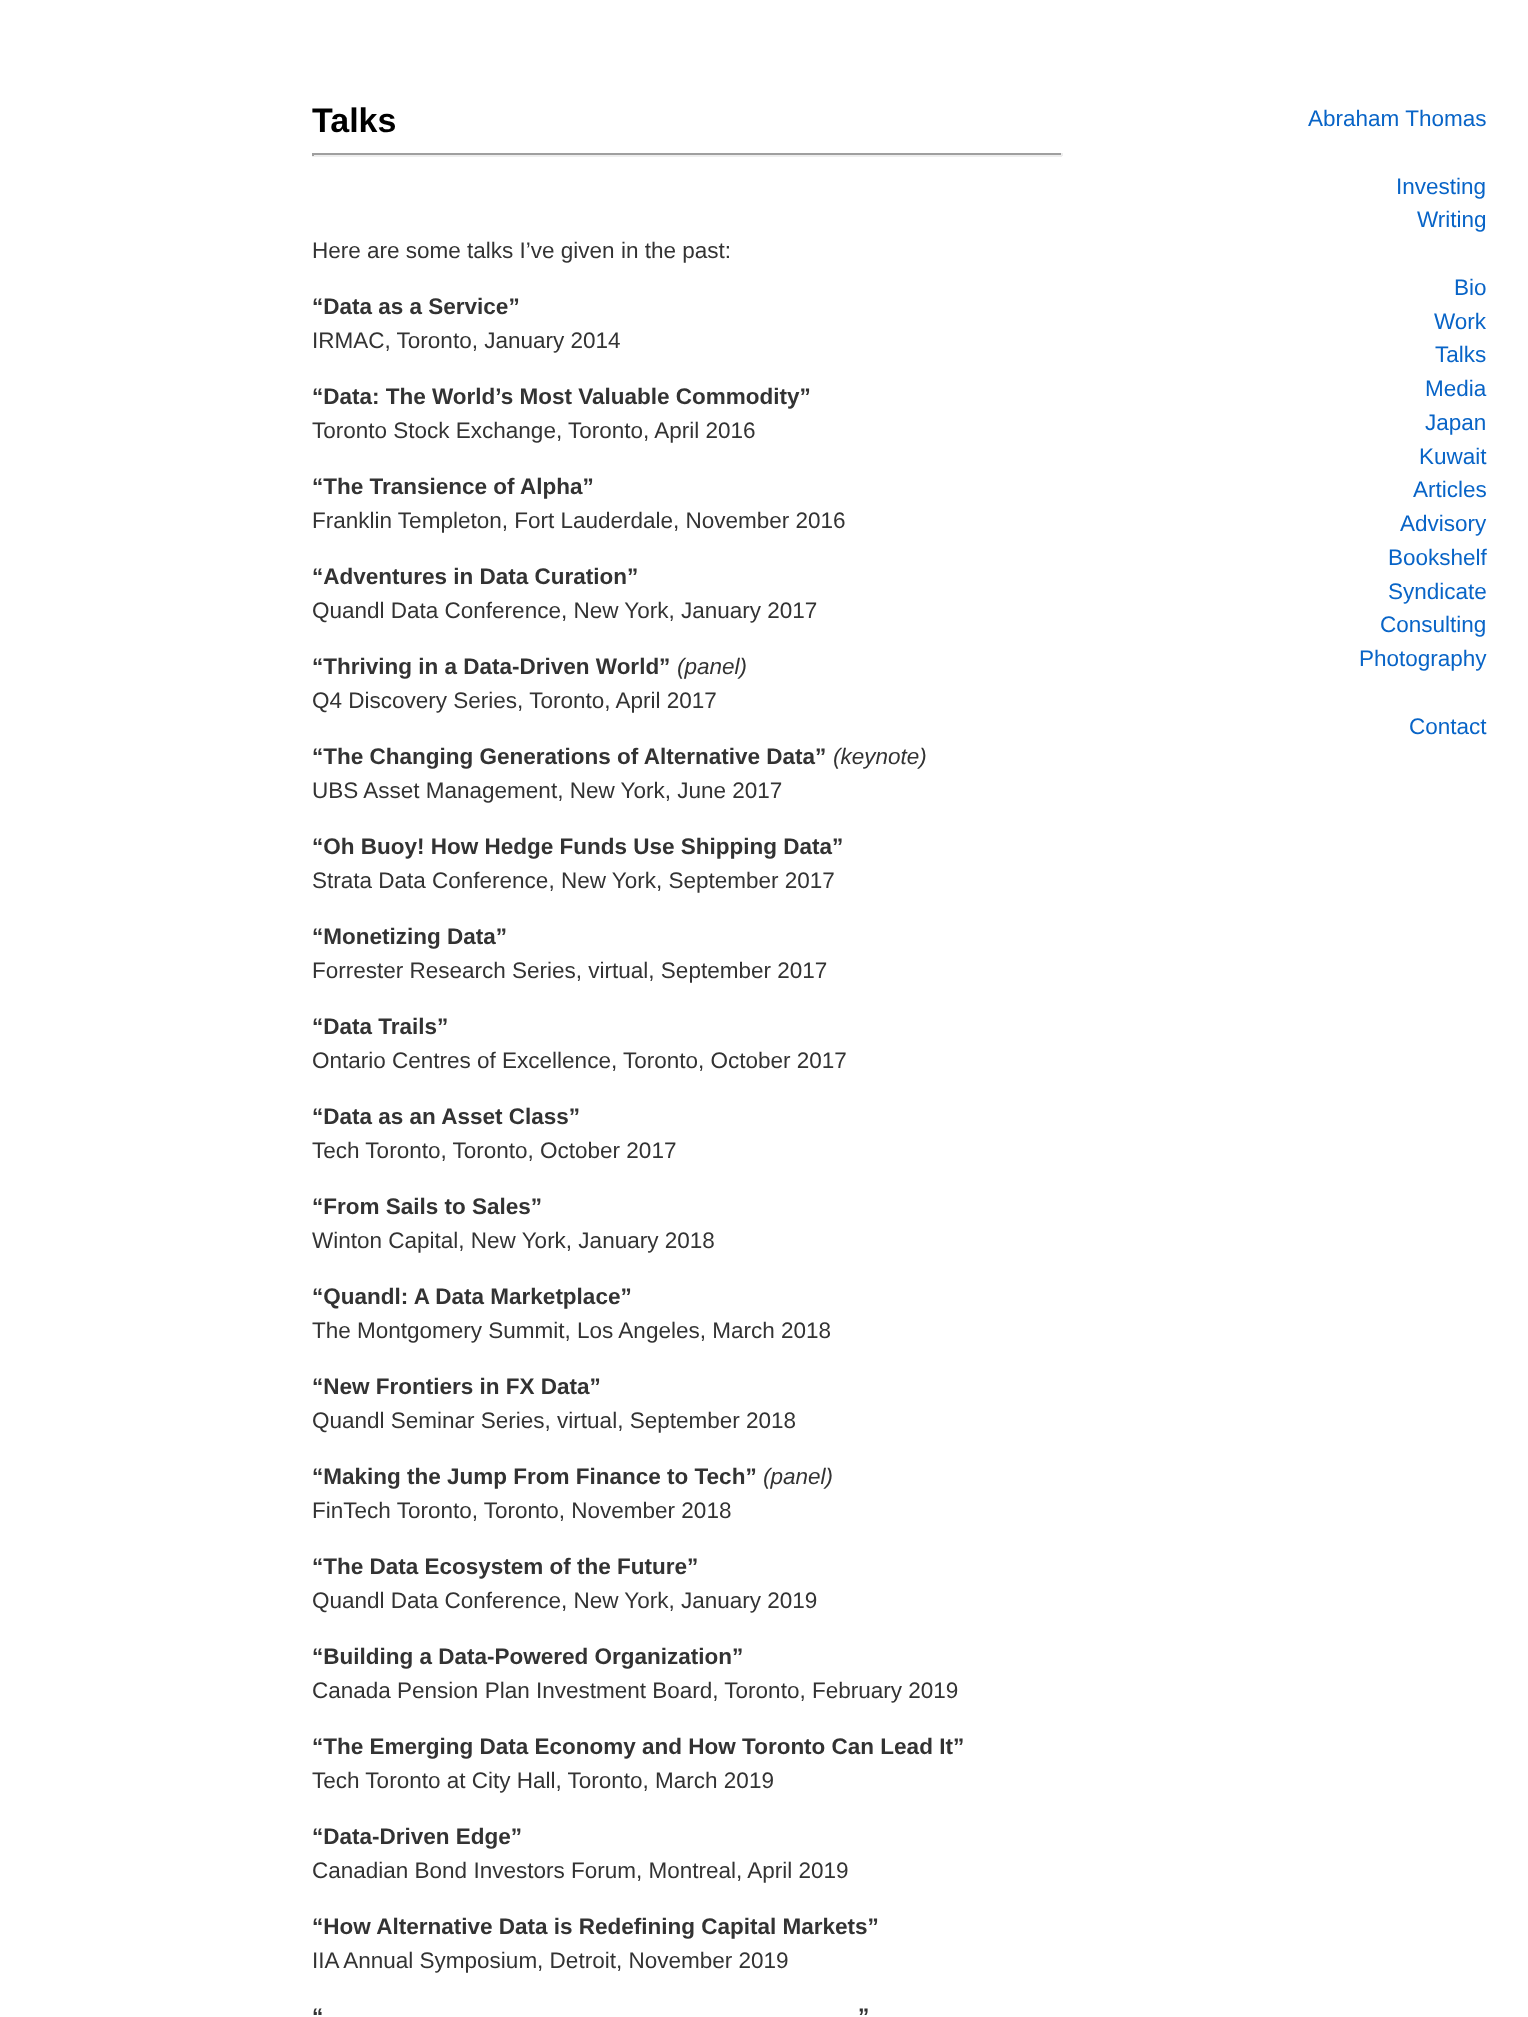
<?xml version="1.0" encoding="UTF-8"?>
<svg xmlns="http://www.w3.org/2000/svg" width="1528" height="2017">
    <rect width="100%" height="100%" fill="#FFFFFF"/>
    <text x="312" y="132" font-family="Liberation Sans" font-size="34" font-weight="700" fill="#000000">Talks</text>
    <rect x="312" y="153" width="750" height="2" fill="#9F9F9F"/>
    <rect x="1061" y="153" width="2" height="3" fill="#EEEEEE"/>
    <rect x="312" y="155" width="750" height="2" fill="#EEEEEE"/>
    <rect x="312" y="153" width="2" height="3" fill="#9F9F9F"/>
    <text x="312" y="258" font-family="Liberation Sans" font-size="22.5" fill="#333333">Here are some talks I’ve given in the past:</text>
    <text x="312" y="314" font-family="Liberation Sans" font-size="22.5" font-weight="700" fill="#333333">“Data as a Service”</text>
    <text x="312" y="348" font-family="Liberation Sans" font-size="22.5" fill="#333333">IRMAC, Toronto, January 2014</text>
    <text x="312" y="404" font-family="Liberation Sans" font-size="22.5" font-weight="700" fill="#333333">“Data: The World’s Most Valuable Commodity”</text>
    <text x="312" y="438" font-family="Liberation Sans" font-size="22.5" fill="#333333">Toronto Stock Exchange, Toronto, April 2016</text>
    <text x="312" y="494" font-family="Liberation Sans" font-size="22.5" font-weight="700" fill="#333333">“The Transience of Alpha”</text>
    <text x="312" y="528" font-family="Liberation Sans" font-size="22.5" fill="#333333">Franklin Templeton, Fort Lauderdale, November 2016</text>
    <text x="312" y="584" font-family="Liberation Sans" font-size="22.5" font-weight="700" fill="#333333">“Adventures in Data Curation”</text>
    <text x="312" y="618" font-family="Liberation Sans" font-size="22.5" fill="#333333">Quandl Data Conference, New York, January 2017</text>
    <text x="312" y="674" font-family="Liberation Sans" font-size="22.5" font-weight="700" fill="#333333">“Thriving in a Data-Driven World”</text>
    <text x="677" y="674" font-family="Liberation Sans" font-size="22.5" font-style="italic" fill="#333333">(panel)</text>
    <text x="312" y="708" font-family="Liberation Sans" font-size="22.5" fill="#333333">Q4 Discovery Series, Toronto, April 2017</text>
    <text x="312" y="764" font-family="Liberation Sans" font-size="22.5" font-weight="700" fill="#333333">“The Changing Generations of Alternative Data”</text>
    <text x="833" y="764" font-family="Liberation Sans" font-size="22.5" font-style="italic" fill="#333333">(keynote)</text>
    <text x="312" y="798" font-family="Liberation Sans" font-size="22.5" fill="#333333">UBS Asset Management, New York, June 2017</text>
    <text x="312" y="854" font-family="Liberation Sans" font-size="22.5" font-weight="700" fill="#333333">“Oh Buoy! How Hedge Funds Use Shipping Data”</text>
    <text x="312" y="888" font-family="Liberation Sans" font-size="22.5" fill="#333333">Strata Data Conference, New York, September 2017</text>
    <text x="312" y="944" font-family="Liberation Sans" font-size="22.5" font-weight="700" fill="#333333">“Monetizing Data”</text>
    <text x="312" y="978" font-family="Liberation Sans" font-size="22.5" fill="#333333">Forrester Research Series, virtual, September 2017</text>
    <text x="312" y="1034" font-family="Liberation Sans" font-size="22.5" font-weight="700" fill="#333333">“Data Trails”</text>
    <text x="312" y="1068" font-family="Liberation Sans" font-size="22.5" fill="#333333">Ontario Centres of Excellence, Toronto, October 2017</text>
    <text x="312" y="1124" font-family="Liberation Sans" font-size="22.5" font-weight="700" fill="#333333">“Data as an Asset Class”</text>
    <text x="312" y="1158" font-family="Liberation Sans" font-size="22.5" fill="#333333">Tech Toronto, Toronto, October 2017</text>
    <text x="312" y="1214" font-family="Liberation Sans" font-size="22.5" font-weight="700" fill="#333333">“From Sails to Sales”</text>
    <text x="312" y="1248" font-family="Liberation Sans" font-size="22.5" fill="#333333">Winton Capital, New York, January 2018</text>
    <text x="312" y="1304" font-family="Liberation Sans" font-size="22.5" font-weight="700" fill="#333333">“Quandl: A Data Marketplace”</text>
    <text x="312" y="1338" font-family="Liberation Sans" font-size="22.5" fill="#333333">The Montgomery Summit, Los Angeles, March 2018</text>
    <text x="312" y="1394" font-family="Liberation Sans" font-size="22.5" font-weight="700" fill="#333333">“New Frontiers in FX Data”</text>
    <text x="312" y="1428" font-family="Liberation Sans" font-size="22.5" fill="#333333">Quandl Seminar Series, virtual, September 2018</text>
    <text x="312" y="1484" font-family="Liberation Sans" font-size="22.5" font-weight="700" fill="#333333">“Making the Jump From Finance to Tech”</text>
    <text x="763" y="1484" font-family="Liberation Sans" font-size="22.5" font-style="italic" fill="#333333">(panel)</text>
    <text x="312" y="1518" font-family="Liberation Sans" font-size="22.5" fill="#333333">FinTech Toronto, Toronto, November 2018</text>
    <text x="312" y="1574" font-family="Liberation Sans" font-size="22.5" font-weight="700" fill="#333333">“The Data Ecosystem of the Future”</text>
    <text x="312" y="1608" font-family="Liberation Sans" font-size="22.5" fill="#333333">Quandl Data Conference, New York, January 2019</text>
    <text x="312" y="1664" font-family="Liberation Sans" font-size="22.5" font-weight="700" fill="#333333">“Building a Data-Powered Organization”</text>
    <text x="312" y="1698" font-family="Liberation Sans" font-size="22.5" fill="#333333">Canada Pension Plan Investment Board, Toronto, February 2019</text>
    <text x="312" y="1754" font-family="Liberation Sans" font-size="22.5" font-weight="700" fill="#333333">“The Emerging Data Economy and How Toronto Can Lead It”</text>
    <text x="312" y="1788" font-family="Liberation Sans" font-size="22.5" fill="#333333">Tech Toronto at City Hall, Toronto, March 2019</text>
    <text x="312" y="1844" font-family="Liberation Sans" font-size="22.5" font-weight="700" fill="#333333">“Data-Driven Edge”</text>
    <text x="312" y="1878" font-family="Liberation Sans" font-size="22.5" fill="#333333">Canadian Bond Investors Forum, Montreal, April 2019</text>
    <text x="312" y="1934" font-family="Liberation Sans" font-size="22.5" font-weight="700" fill="#333333">“How Alternative Data is Redefining Capital Markets”</text>
    <text x="312" y="1968" font-family="Liberation Sans" font-size="22.5" fill="#333333">IIA Annual Symposium, Detroit, November 2019</text>
    <text x="312" y="2024" font-family="Liberation Sans" font-size="22.5" font-weight="700" fill="#333333">“</text>
    <text x="858" y="2024" font-family="Liberation Sans" font-size="22.5" font-weight="700" fill="#333333">”</text>
    <text x="1308" y="126" font-family="Liberation Sans" font-size="22.5" fill="#0864C7">Abraham Thomas</text>
    <text x="1396" y="194" font-family="Liberation Sans" font-size="22.5" fill="#0864C7">Investing</text>
    <text x="1417" y="227" font-family="Liberation Sans" font-size="22.5" fill="#0864C7">Writing</text>
    <text x="1454" y="295" font-family="Liberation Sans" font-size="22.5" fill="#0864C7">Bio</text>
    <text x="1434" y="329" font-family="Liberation Sans" font-size="22.5" fill="#0864C7">Work</text>
    <text x="1435" y="362" font-family="Liberation Sans" font-size="22.5" fill="#0864C7">Talks</text>
    <text font-family="Liberation Sans" font-size="22.5" fill="#0864C7">
        <tspan x="1425" y="396">Media</tspan>
        <tspan x="1425" y="430">Japan</tspan>
    </text>
    <text x="1419" y="464" font-family="Liberation Sans" font-size="22.5" fill="#0864C7">Kuwait</text>
    <text x="1413" y="497" font-family="Liberation Sans" font-size="22.5" fill="#0864C7">Articles</text>
    <text x="1400" y="531" font-family="Liberation Sans" font-size="22.5" fill="#0864C7">Advisory</text>
    <text font-family="Liberation Sans" font-size="22.5" fill="#0864C7">
        <tspan x="1388" y="565">Bookshelf</tspan>
        <tspan x="1388" y="599">Syndicate</tspan>
    </text>
    <text x="1380" y="632" font-family="Liberation Sans" font-size="22.5" fill="#0864C7">Consulting</text>
    <text x="1359" y="666" font-family="Liberation Sans" font-size="22.5" fill="#0864C7">Photography</text>
    <text x="1409" y="734" font-family="Liberation Sans" font-size="22.5" fill="#0864C7">Contact</text>
</svg>
